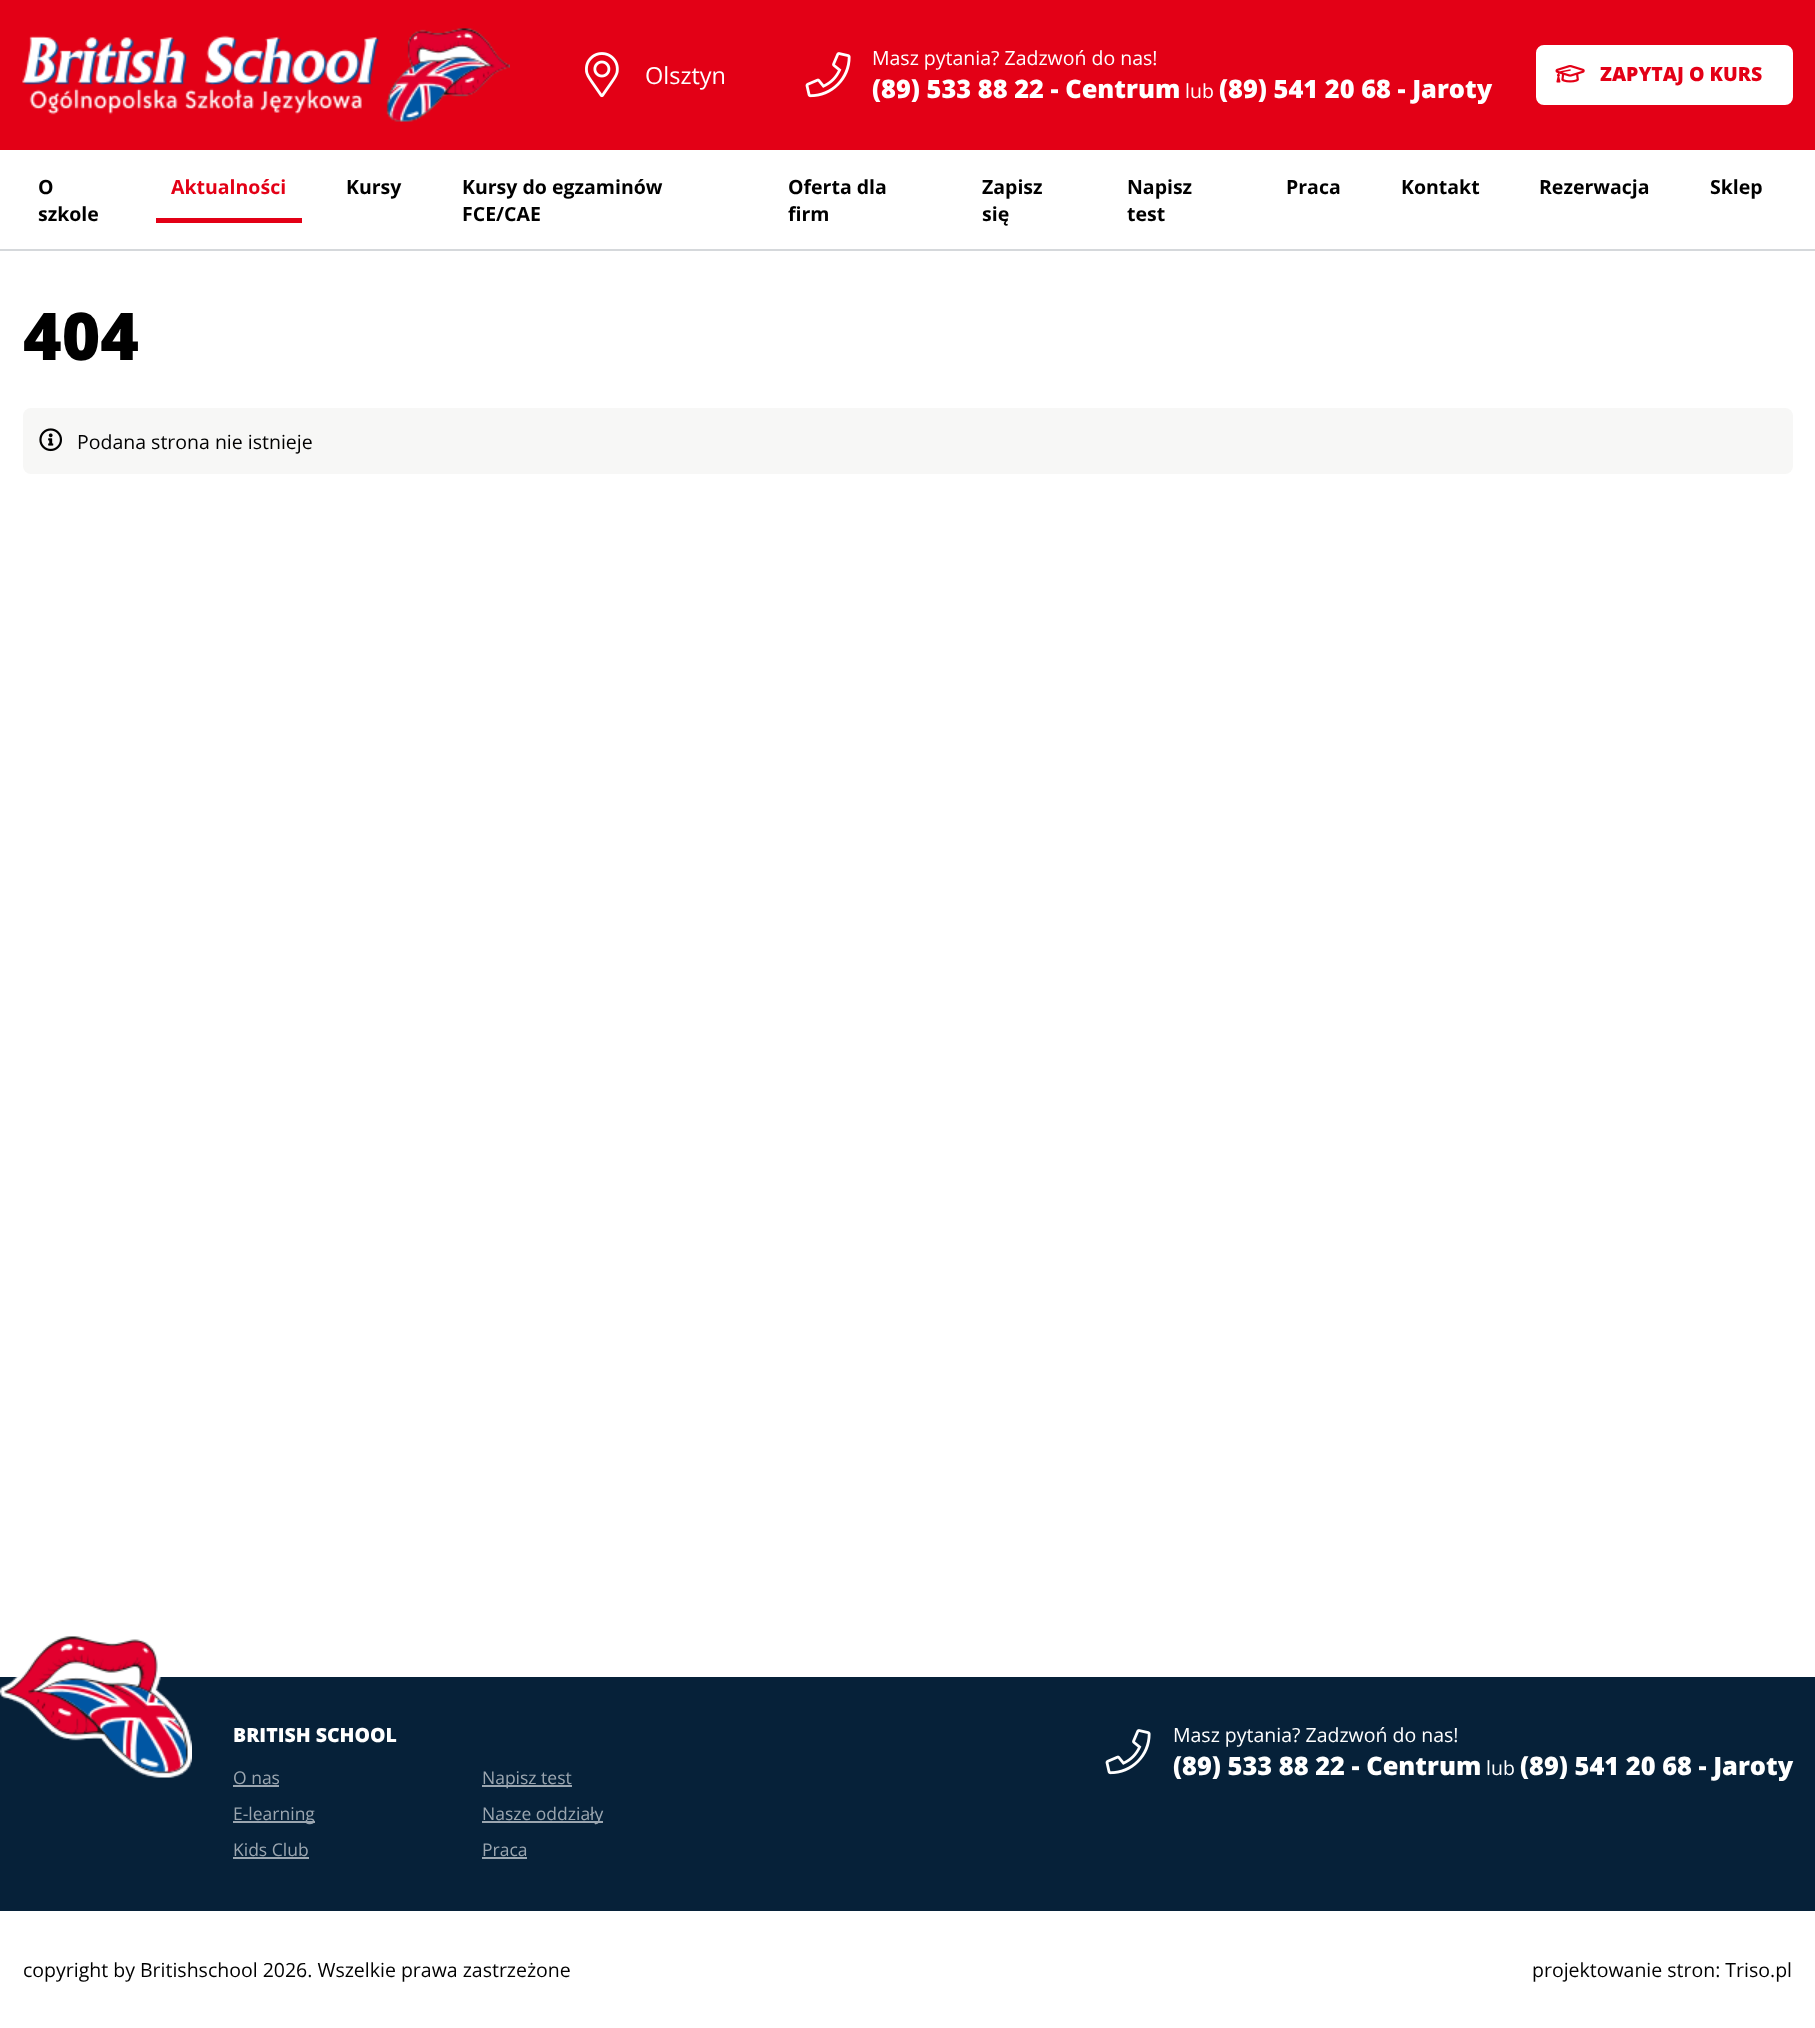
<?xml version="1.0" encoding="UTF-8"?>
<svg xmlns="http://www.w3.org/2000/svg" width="1815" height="2028">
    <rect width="100%" height="100%" fill="#FFFFFF"/>
    <rect x="0" y="0" width="1815" height="150" fill="#E30016"/>
    <image x="22" y="28" width="488" height="94" href="img_01.png"/>
    <image x="585" y="52" width="34" height="46" href="img_02.png"/>
    <text x="645" y="84" font-family="Open Sans" font-size="23.5" fill="#FFFFFF">Olsztyn</text>
    <image x="805" y="52" width="46" height="46" href="img_03.png"/>
    <text x="872" y="65" font-family="Open Sans" font-size="19.5" fill="#FFFFFF">Masz pytania? Zadzwoń do nas!</text>
    <text x="872" y="98" font-family="Open Sans" font-size="25.4" font-weight="800" fill="#FFFFFF">(89) 533 88 22 - Centrum</text>
    <text x="1185" y="98" font-family="Open Sans" font-size="19.5" fill="#FFFFFF">lub</text>
    <text x="1219" y="98" font-family="Open Sans" font-size="25.4" font-weight="800" fill="#FFFFFF">(89) 541 20 68 - Jaroty</text>
    <rect x="1537.5" y="46.5" width="254" height="57" rx="6.5" fill="#FFFFFF" stroke="#FFFFFF" stroke-width="3"/>
    <image x="1555" y="65" width="30" height="18" href="img_04.png"/>
    <text x="1600" y="81" font-family="Open Sans" font-size="19.5" font-weight="800" fill="#E30016">ZAPYTAJ O KURS</text>
    <rect x="0" y="249" width="1815" height="2" fill="#D5D8DB"/>
    <text font-family="Open Sans" font-size="19.5" font-weight="700" fill="#000000">
        <tspan x="38" y="194">O</tspan>
        <tspan x="38" y="221">szkole</tspan>
    </text>
    <text x="171" y="194" font-family="Open Sans" font-size="19.5" font-weight="700" fill="#E30016">Aktualności</text>
    <rect x="156" y="218" width="146" height="5" fill="#E30016"/>
    <text x="346" y="194" font-family="Open Sans" font-size="19.5" font-weight="700" fill="#000000">Kursy</text>
    <text font-family="Open Sans" font-size="19.5" font-weight="700" fill="#000000">
        <tspan x="462" y="194">Kursy do egzaminów</tspan>
        <tspan x="462" y="221">FCE/CAE</tspan>
    </text>
    <text font-family="Open Sans" font-size="19.5" font-weight="700" fill="#000000">
        <tspan x="788" y="194">Oferta dla</tspan>
        <tspan x="788" y="221">firm</tspan>
    </text>
    <text font-family="Open Sans" font-size="19.5" font-weight="700" fill="#000000">
        <tspan x="982" y="194">Zapisz</tspan>
        <tspan x="982" y="221">się</tspan>
    </text>
    <text font-family="Open Sans" font-size="19.5" font-weight="700" fill="#000000">
        <tspan x="1127" y="194">Napisz</tspan>
        <tspan x="1127" y="221">test</tspan>
    </text>
    <text x="1286" y="194" font-family="Open Sans" font-size="19.5" font-weight="700" fill="#000000">Praca</text>
    <text x="1401" y="194" font-family="Open Sans" font-size="19.5" font-weight="700" fill="#000000">Kontakt</text>
    <text x="1539" y="194" font-family="Open Sans" font-size="19.5" font-weight="700" fill="#000000">Rezerwacja</text>
    <text x="1710" y="194" font-family="Open Sans" font-size="19.5" font-weight="700" fill="#000000">Sklep</text>
    <text x="23" y="360" font-family="Open Sans" font-size="66" font-weight="800" fill="#000000">404</text>
    <rect x="23" y="408" width="1770" height="66" rx="8" fill="#F7F7F6"/>
    <image x="39" y="428" width="23" height="24" href="img_05.png"/>
    <text x="77" y="449" font-family="Open Sans" font-size="19.5" fill="#000000">Podana strona nie istnieje</text>
    <rect x="0" y="1677" width="1815" height="234" fill="#062139"/>
    <image x="0" y="1636" width="192" height="142" href="img_06.png"/>
    <text x="233" y="1742" font-family="Open Sans" font-size="19.5" font-weight="800" fill="#FFFFFF">BRITISH SCHOOL</text>
    <text x="233" y="1784" font-family="Open Sans" font-size="17.5" fill="#9BA6B0">O nas</text>
    <rect x="233" y="1785" width="46" height="2" fill="#9BA6B0"/>
    <rect x="482" y="1785" width="90" height="2" fill="#9BA6B0"/>
    <text x="482" y="1784" font-family="Open Sans" font-size="17.5" fill="#9BA6B0">Napisz test</text>
    <rect x="233" y="1821" width="82" height="2" fill="#9BA6B0"/>
    <text x="233" y="1820" font-family="Open Sans" font-size="17.5" fill="#9BA6B0">E-learning</text>
    <rect x="482" y="1821" width="121" height="2" fill="#9BA6B0"/>
    <text x="482" y="1820" font-family="Open Sans" font-size="17.5" fill="#9BA6B0">Nasze oddziały</text>
    <text x="233" y="1856" font-family="Open Sans" font-size="17.5" fill="#9BA6B0">Kids Club</text>
    <rect x="233" y="1857" width="76" height="2" fill="#9BA6B0"/>
    <text x="482" y="1856" font-family="Open Sans" font-size="17.5" fill="#9BA6B0">Praca</text>
    <rect x="482" y="1857" width="45" height="2" fill="#9BA6B0"/>
    <image x="1105" y="1729" width="46" height="46" href="img_07.png"/>
    <text x="1173" y="1742" font-family="Open Sans" font-size="19.5" fill="#FFFFFF">Masz pytania? Zadzwoń do nas!</text>
    <text x="1173" y="1775" font-family="Open Sans" font-size="25.4" font-weight="800" fill="#FFFFFF">(89) 533 88 22 - Centrum</text>
    <text x="1486" y="1775" font-family="Open Sans" font-size="19.5" fill="#FFFFFF">lub</text>
    <text x="1520" y="1775" font-family="Open Sans" font-size="25.4" font-weight="800" fill="#FFFFFF">(89) 541 20 68 - Jaroty</text>
    <text x="23" y="1977" font-family="Open Sans" font-size="19.5" fill="#000000">copyright by Britishschool 2026. Wszelkie prawa zastrzeżone</text>
    <text x="1532" y="1977" font-family="Open Sans" font-size="19.5" fill="#000000">projektowanie stron: Triso.pl</text>
</svg>
